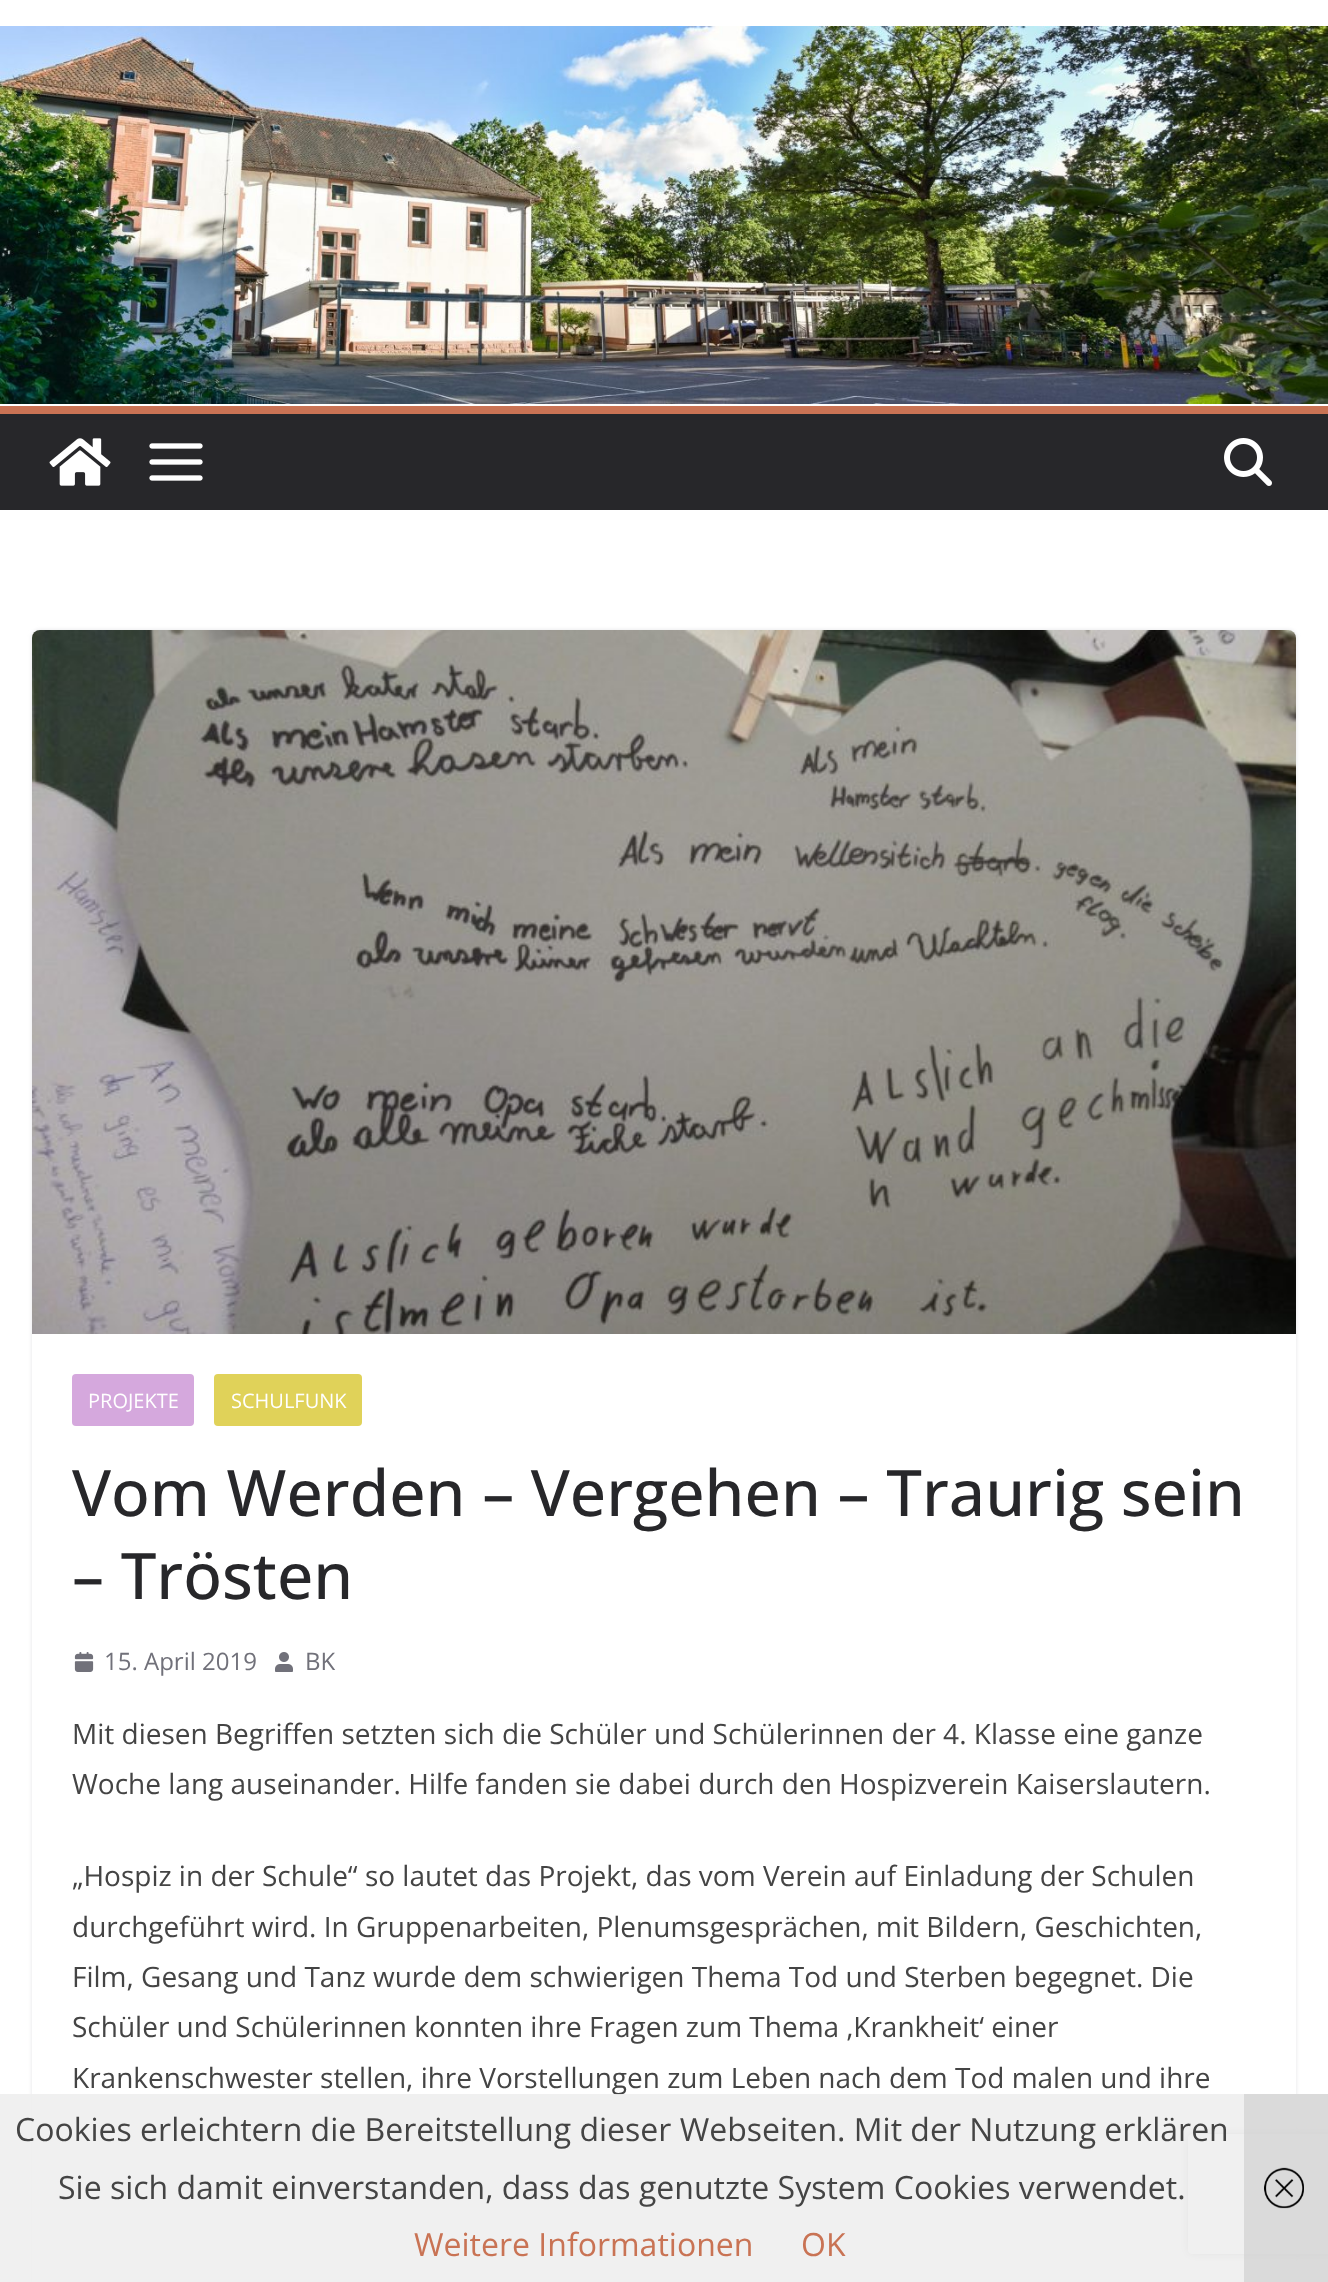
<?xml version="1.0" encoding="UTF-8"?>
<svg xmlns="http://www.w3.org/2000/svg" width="1328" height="2282">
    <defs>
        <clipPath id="clip1"><path d="M 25 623 H 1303 V 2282 H 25 Z M 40 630 H 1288 C 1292.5 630 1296 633.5 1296 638 V 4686 C 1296 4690.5 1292.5 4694 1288 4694 H 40 C 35.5 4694 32 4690.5 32 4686 V 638 C 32 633.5 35.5 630 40 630 Z" clip-rule="evenodd"/></clipPath>
        <filter id="blur1" x="-50%" y="-200%" width="200%" height="500%"><feGaussianBlur stdDeviation="2"/></filter>
        <clipPath id="clip2"><path d="M 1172 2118 H 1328 V 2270 H 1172 Z M 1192 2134 H 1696 C 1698 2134 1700 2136 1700 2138 V 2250 C 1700 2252 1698 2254 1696 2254 H 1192 C 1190 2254 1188 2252 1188 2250 V 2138 C 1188 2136 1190 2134 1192 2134 Z" clip-rule="evenodd"/></clipPath>
        <filter id="blur2" x="-50%" y="-200%" width="200%" height="500%"><feGaussianBlur stdDeviation="5"/></filter>
    </defs>
    <rect width="100%" height="100%" fill="#FFFFFF"/>
    <image x="0" y="26" width="1328" height="378" href="img_01.png"/>
    <rect x="0" y="414" width="1328" height="96" fill="#27272A"/>
    <rect x="0" y="406" width="1328" height="8" fill="#C97354"/>
    <image x="49" y="438" width="62" height="48" href="img_02.png"/>
    <image x="149" y="443" width="54" height="38" href="img_03.png"/>
    <image x="1224" y="438" width="48" height="48" href="img_04.png"/>
    <g clip-path="url(#clip1)">
        <rect x="32" y="630" width="1264" height="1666" rx="8" fill="#E4E4E7" filter="url(#blur1)"/>
    </g>
    <image x="32" y="630" width="1264" height="704" href="img_05.png"/>
    <rect x="72" y="1374" width="122" height="52" rx="4" fill="#D5A8DD"/>
    <text x="88" y="1408" font-family="Open Sans" font-size="20" fill="#FFFFFF">PROJEKTE</text>
    <rect x="214" y="1374" width="148" height="52" rx="4" fill="#E0D259"/>
    <text x="231" y="1408" font-family="Open Sans" font-size="20" fill="#FFFFFF">SCHULFUNK</text>
    <text font-family="Open Sans" font-size="64" font-weight="500" fill="#27272A">
        <tspan x="72" y="1516">Vom Werden – Vergehen – Traurig sein</tspan>
        <tspan x="72" y="1599">– Trösten</tspan>
    </text>
    <image x="74" y="1652" width="20" height="20" href="img_06.png"/>
    <text x="104" y="1670" font-family="Open Sans" font-size="24" fill="#71717A">15. April 2019</text>
    <image x="275" y="1652" width="18" height="20" href="img_07.png"/>
    <text x="305" y="1670" font-family="Open Sans" font-size="24" fill="#71717A">BK</text>
    <text font-family="Open Sans" font-size="28" fill="#444444">
        <tspan x="72" y="1744">Mit diesen Begriffen setzten sich die Schüler und Schülerinnen der 4. Klasse eine ganze</tspan>
        <tspan x="72" y="1794">Woche lang auseinander. Hilfe fanden sie dabei durch den Hospizverein Kaiserslautern.</tspan>
    </text>
    <text font-family="Open Sans" font-size="28" fill="#444444">
        <tspan x="72" y="1886">„Hospiz in der Schule“ so lautet das Projekt, das vom Verein auf Einladung der Schulen</tspan>
        <tspan x="72" y="1937">durchgeführt wird. In Gruppenarbeiten, Plenumsgesprächen, mit Bildern, Geschichten,</tspan>
        <tspan x="72" y="1987">Film, Gesang und Tanz wurde dem schwierigen Thema Tod und Sterben begegnet. Die</tspan>
        <tspan x="72" y="2037">Schüler und Schülerinnen konnten ihre Fragen zum Thema ‚Krankheit‘ einer</tspan>
        <tspan x="72" y="2088">Krankenschwester stellen, ihre Vorstellungen zum Leben nach dem Tod malen und ihre</tspan>
    </text>
    <g clip-path="url(#clip2)">
        <rect x="1188" y="2134" width="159" height="120" rx="4" fill="#808080" filter="url(#blur2)"/>
    </g>
    <rect x="0" y="2094" width="1328" height="188" fill="#EEEEEE" fill-opacity="0.9"/>
    <text x="15" y="2141" font-family="Open Sans" font-size="32" fill="#444444">Cookies erleichtern die Bereitstellung dieser Webseiten. Mit der Nutzung erklären</text>
    <text x="58" y="2199" font-family="Open Sans" font-size="32" fill="#444444">Sie sich damit einverstanden, dass das genutzte System Cookies verwendet.</text>
    <text x="414" y="2256" font-family="Open Sans" font-size="32" fill="#C97354">Weitere Informationen</text>
    <text x="801" y="2256" font-family="Open Sans" font-size="32" fill="#C97354">OK</text>
    <rect x="1244" y="2094" width="84" height="188" fill="#CCCCCC" fill-opacity="0.6"/>
    <image x="1264" y="2167" width="40" height="42" href="img_08.png"/>
</svg>
